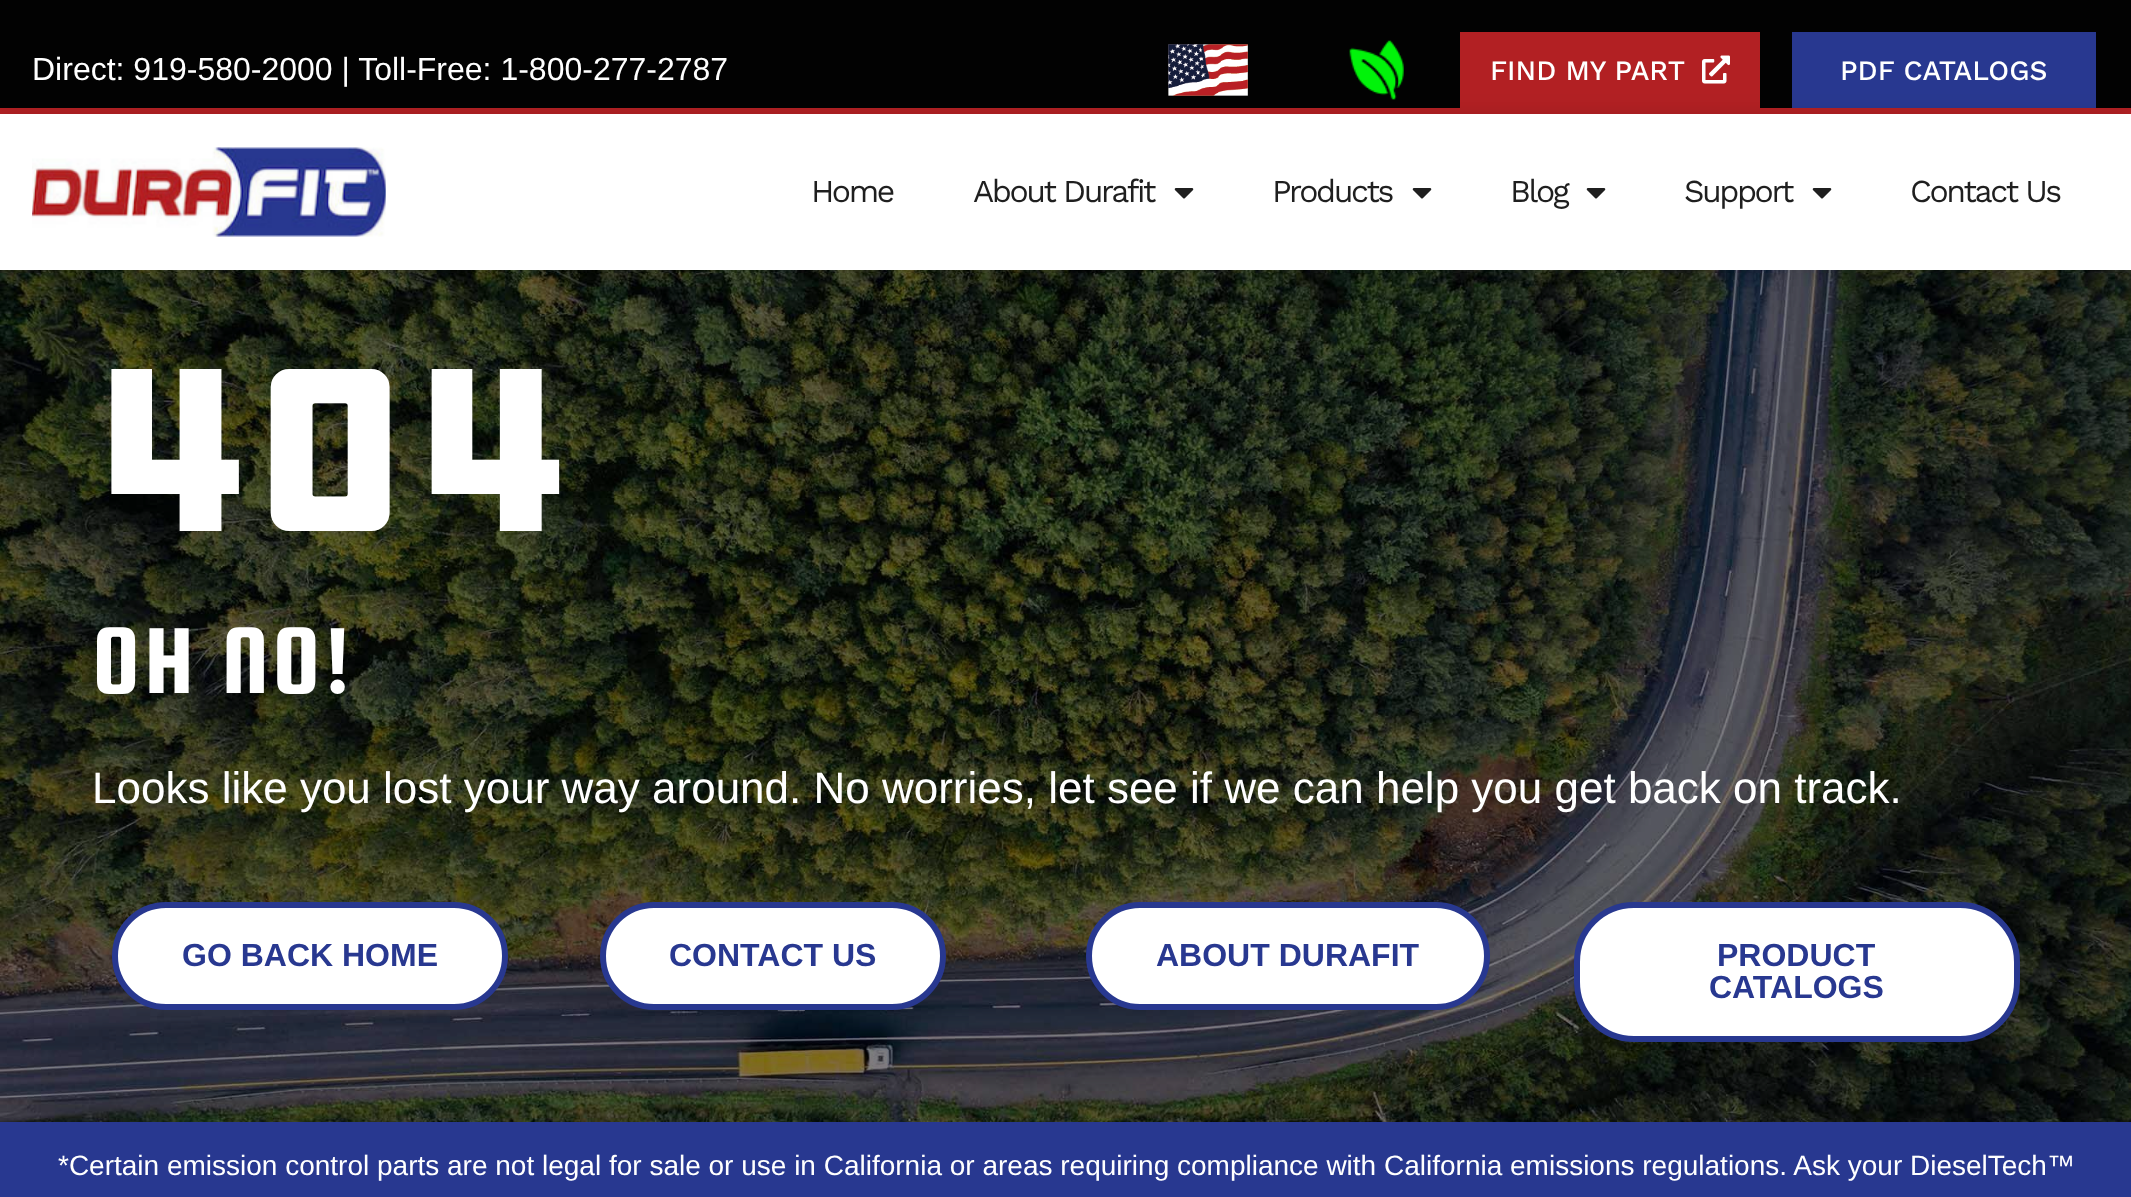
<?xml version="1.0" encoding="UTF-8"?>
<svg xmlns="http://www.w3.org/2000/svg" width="2131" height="1197">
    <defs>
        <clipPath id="clip1"><path d="M 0 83 H 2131 V 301 H 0 Z M 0 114 H 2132 V 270 H 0 Z" clip-rule="evenodd"/></clipPath>
        <filter id="blur1" x="-50%" y="-200%" width="200%" height="500%"><feGaussianBlur stdDeviation="10"/></filter>
    </defs>
    <rect width="100%" height="100%" fill="#FFFFFF"/>
    <rect x="0" y="0" width="2131" height="108" fill="#020202"/>
    <rect x="0" y="108" width="2131" height="6" fill="#B22023"/>
    <text x="32" y="80" font-family="Liberation Sans" font-size="32" fill="#FFFFFF">Direct: 919-580-2000 | Toll-Free: 1-800-277-2787</text>
    <image x="1168" y="44" width="80" height="52" href="img_01.png"/>
    <image x="1349" y="40" width="55" height="60" href="img_02.png"/>
    <rect x="1460" y="32" width="300" height="76" fill="#B22023"/>
    <text x="1490" y="80" font-family="Work Sans" font-size="28" font-weight="500" fill="#FFFFFF">FIND MY PART</text>
    <image x="1702" y="55" width="28" height="29" href="img_03.png"/>
    <rect x="1792" y="32" width="304" height="76" fill="#283890"/>
    <text x="1840" y="80" font-family="Work Sans" font-size="28" font-weight="500" fill="#FFFFFF">PDF CATALOGS</text>
    <image x="0" y="270" width="2131" height="852" href="img_06.png"/>
    <g clip-path="url(#clip1)">
        <rect x="0" y="114" width="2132" height="156" fill="#000000" fill-opacity="0.12" filter="url(#blur1)"/>
    </g>
    <image x="32" y="147" width="354" height="90" href="img_04.png"/>
    <text x="811" y="202" font-family="Work Sans" font-size="32" letter-spacing="-2.4" fill="#1F1F1F">Home</text>
    <text x="973" y="202" font-family="Work Sans" font-size="32" letter-spacing="-2.4" fill="#1F1F1F">About Durafit</text>
    <image x="1174" y="188" width="20" height="11" href="img_05.png"/>
    <text x="1272" y="202" font-family="Work Sans" font-size="32" letter-spacing="-2.4" fill="#1F1F1F">Products</text>
    <image x="1412" y="188" width="20" height="11" href="img_05.png"/>
    <text x="1510" y="202" font-family="Work Sans" font-size="32" letter-spacing="-2.4" fill="#1F1F1F">Blog</text>
    <image x="1586" y="188" width="20" height="11" href="img_05.png"/>
    <text x="1684" y="202" font-family="Work Sans" font-size="32" letter-spacing="-2.4" fill="#1F1F1F">Support</text>
    <image x="1812" y="188" width="20" height="11" href="img_05.png"/>
    <text x="1910" y="202" font-family="Work Sans" font-size="32" letter-spacing="-2.4" fill="#1F1F1F">Contact Us</text>
    <text x="92" y="531" font-family="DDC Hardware" font-size="240" letter-spacing="4" fill="#FFFFFF">404</text>
    <text x="92" y="693" font-family="Squada One" font-size="100" letter-spacing="4" fill="#FFFFFF">OH NO!</text>
    <text x="92" y="803" font-family="Liberation Sans" font-size="44" fill="#FFFFFF">Looks like you lost your way around. No worries, let see if we can help you get back on track.</text>
    <rect x="115" y="905" width="390" height="102" rx="51" fill="#FFFFFF" stroke="#283890" stroke-width="6"/>
    <text x="182" y="966" font-family="Liberation Sans" font-size="32" font-weight="700" fill="#283890">GO BACK HOME</text>
    <rect x="603" y="905" width="340" height="102" rx="51" fill="#FFFFFF" stroke="#283890" stroke-width="6"/>
    <text x="669" y="966" font-family="Liberation Sans" font-size="32" font-weight="700" fill="#283890">CONTACT US</text>
    <rect x="1089" y="905" width="398" height="102" rx="51" fill="#FFFFFF" stroke="#283890" stroke-width="6"/>
    <text x="1156" y="966" font-family="Liberation Sans" font-size="32" font-weight="700" fill="#283890">ABOUT DURAFIT</text>
    <rect x="1577" y="905" width="440" height="134" rx="57" fill="#FFFFFF" stroke="#283890" stroke-width="6"/>
    <text x="1717" y="966" font-family="Liberation Sans" font-size="32" font-weight="700" fill="#283890">PRODUCT</text>
    <text x="1709" y="998" font-family="Liberation Sans" font-size="32" font-weight="700" fill="#283890">CATALOGS</text>
    <rect x="0" y="1122" width="2131" height="75" fill="#283890"/>
    <text x="58" y="1175" font-family="Liberation Sans" font-size="28" fill="#FFFFFF">*Certain emission control parts are not legal for sale or use in California or areas requiring compliance with California emissions regulations. Ask your DieselTech™</text>
</svg>
